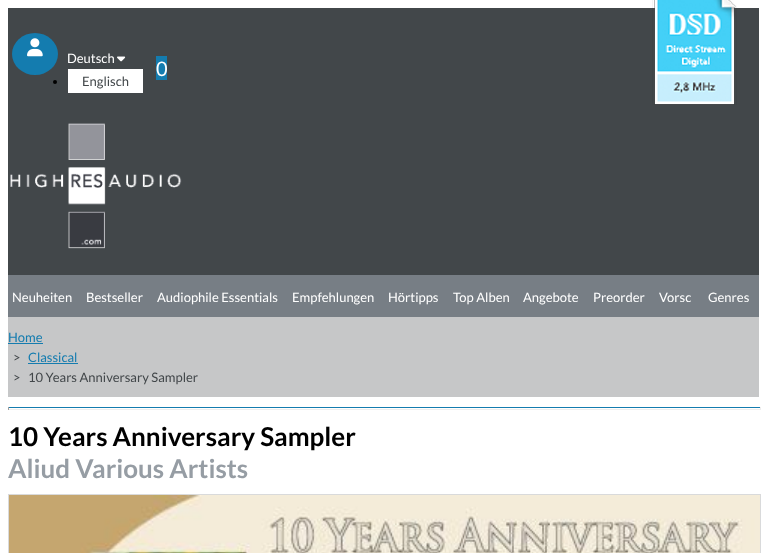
<?xml version="1.0" encoding="UTF-8"?>
<svg xmlns="http://www.w3.org/2000/svg" width="767" height="553">
    <rect width="100%" height="100%" fill="#FFFFFF"/>
    <rect x="8" y="8" width="751" height="267" fill="#42474A"/>
    <ellipse cx="35" cy="54" rx="23" ry="21" fill="#147CAF"/>
    <image x="27" y="38" width="16" height="19" href="img_01.png"/>
    <text x="67" y="63" font-family="Lato" font-size="13" fill="#FFFFFF">Deutsch</text>
    <image x="117" y="56" width="9" height="6" href="img_02.png"/>
    <rect x="68" y="69" width="75" height="24" fill="#FFFFFF"/>
    <circle cx="55" cy="82" r="2" fill="#000000"/>
    <text x="82" y="86" font-family="Lato" font-size="13" fill="#42474A">Englisch</text>
    <rect x="156" y="56" width="11" height="24" fill="#147CAF"/>
    <text x="156" y="76" font-family="Lato" font-size="20" fill="#FFFFFF">0</text>
    <image x="10" y="123" width="172" height="126" href="img_03.png"/>
    <rect x="8" y="275" width="751" height="42" fill="#777E85"/>
    <text x="12" y="302" font-family="Lato" font-size="13" fill="#FFFFFF">Neuheiten</text>
    <text x="86" y="302" font-family="Lato" font-size="13" fill="#FFFFFF">Bestseller</text>
    <text x="157" y="302" font-family="Lato" font-size="13" fill="#FFFFFF">Audiophile Essentials</text>
    <text x="292" y="302" font-family="Lato" font-size="13" fill="#FFFFFF">Empfehlungen</text>
    <text x="388" y="302" font-family="Lato" font-size="13" fill="#FFFFFF">Hörtipps</text>
    <text x="453" y="302" font-family="Lato" font-size="13" fill="#FFFFFF">Top Alben</text>
    <text x="523" y="302" font-family="Lato" font-size="13" fill="#FFFFFF">Angebote</text>
    <text x="593" y="302" font-family="Lato" font-size="13" fill="#FFFFFF">Preorder</text>
    <text x="659" y="302" font-family="Lato" font-size="13" fill="#FFFFFF">Vorsc</text>
    <text x="708" y="302" font-family="Lato" font-size="13" fill="#FFFFFF">Genres</text>
    <rect x="8" y="317" width="751" height="80" fill="#C6C7C8"/>
    <text x="8" y="342" font-family="Lato" font-size="13" fill="#147CAF">Home</text>
    <rect x="8" y="343" width="35" height="1" fill="#147CAF"/>
    <text x="13" y="362" font-family="Lato" font-size="13" fill="#42474A">&gt;</text>
    <text x="28" y="362" font-family="Lato" font-size="13" fill="#147CAF">Classical</text>
    <rect x="28" y="363" width="50" height="1" fill="#147CAF"/>
    <text x="13" y="382" font-family="Lato" font-size="13" fill="#42474A">&gt;</text>
    <text x="28" y="382" font-family="Lato" font-size="13" fill="#42474A">10 Years Anniversary Sampler</text>
    <image x="652" y="0" width="85" height="105" href="img_04.png"/>
    <rect x="8.5" y="494.5" width="752" height="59" fill="none" stroke="#D9DADB"/>
    <image x="9" y="495" width="751" height="58" href="img_05.png"/>
    <rect x="8" y="407" width="753" height="1" fill="#147CAF"/>
    <rect x="760" y="407" width="1" height="3" fill="#EEEEEE"/>
    <rect x="8" y="409" width="753" height="1" fill="#EEEEEE"/>
    <rect x="8" y="407" width="1" height="3" fill="#9F9F9F"/>
    <text x="8" y="446" font-family="Lato" font-size="26" font-weight="700" fill="#000000">10 Years Anniversary Sampler</text>
    <text x="8" y="478" font-family="Lato" font-size="26" font-weight="700" fill="#969DA4">Aliud Various Artists</text>
</svg>
